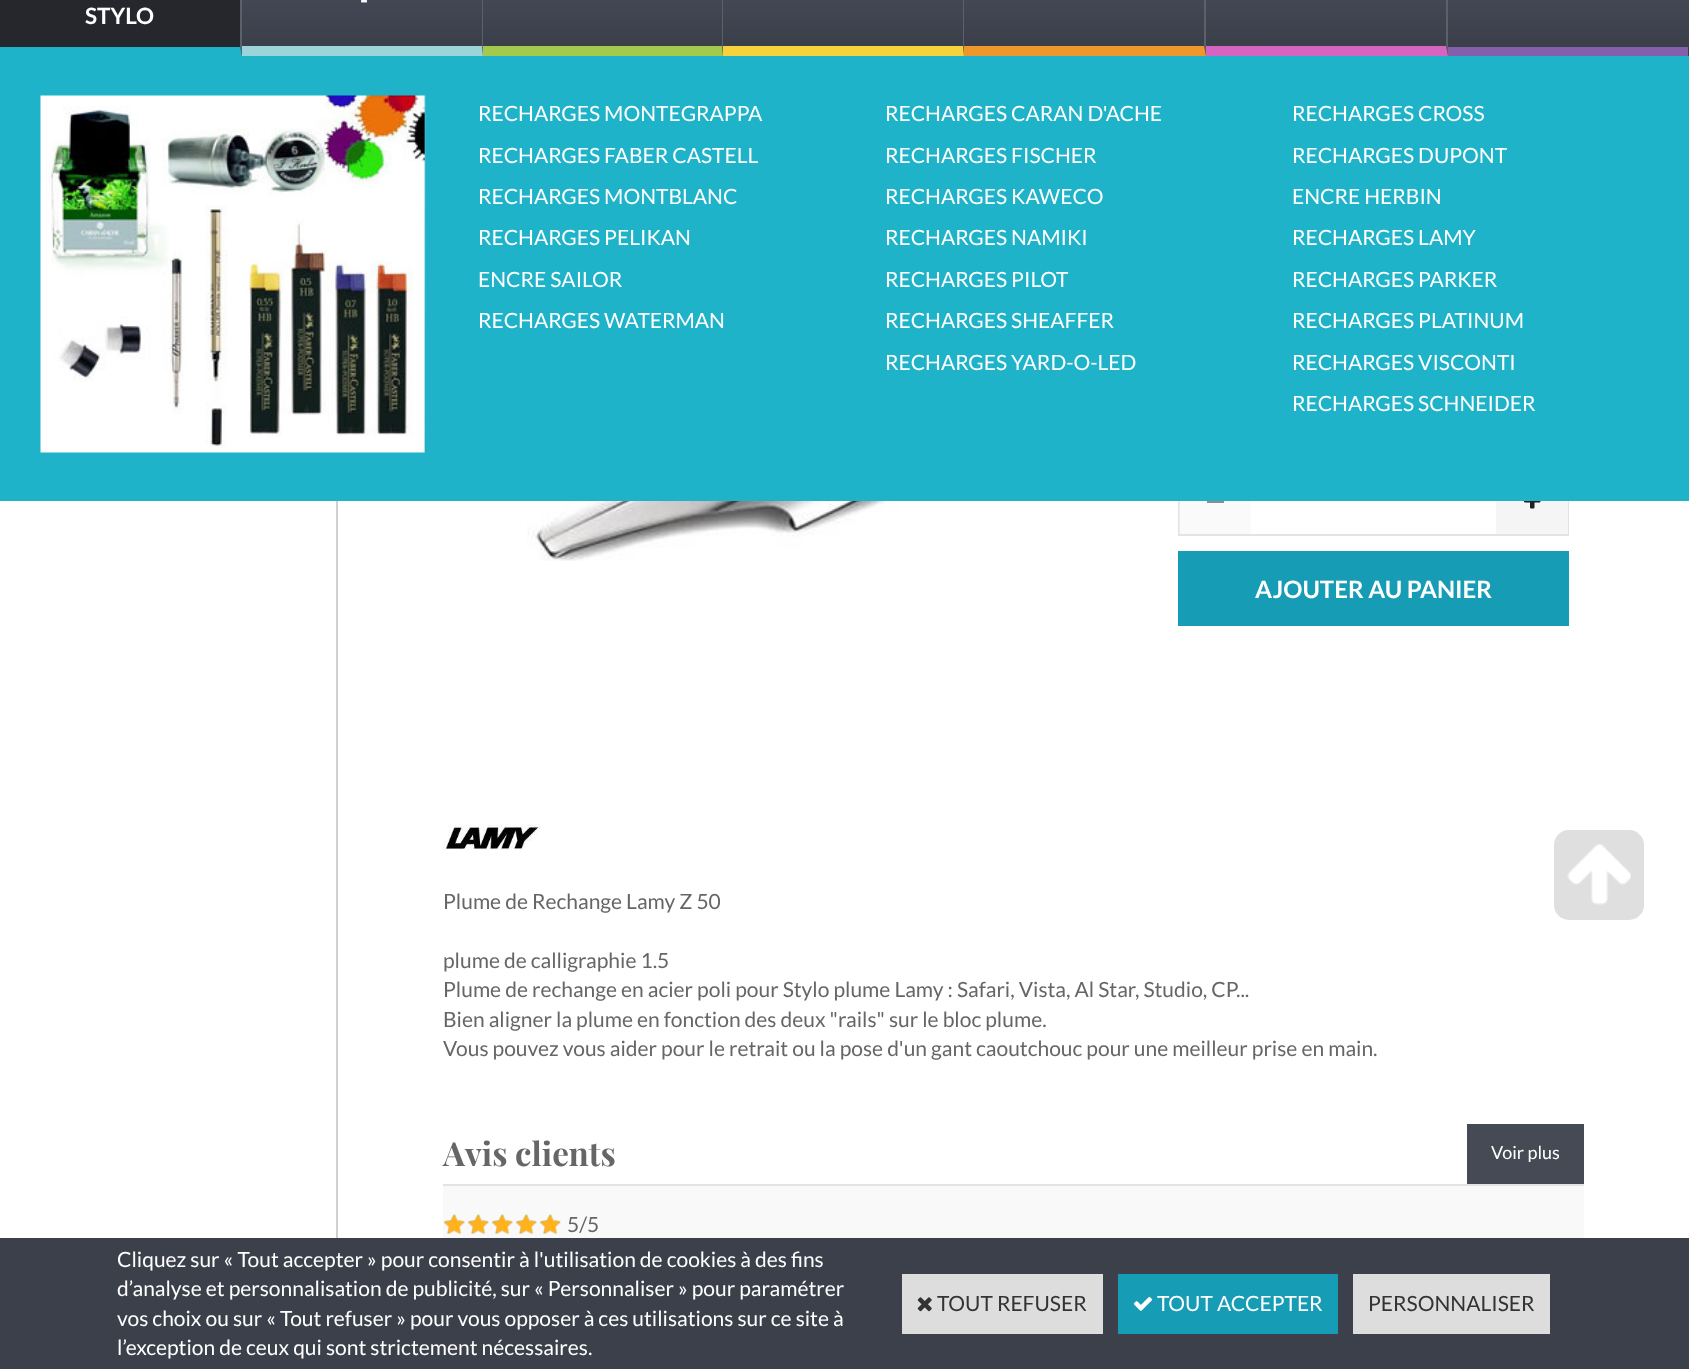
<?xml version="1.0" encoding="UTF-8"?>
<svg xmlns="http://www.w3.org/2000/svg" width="1689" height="1369">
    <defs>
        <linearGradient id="g1" gradientUnits="userSpaceOnUse" x1="845" y1="-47" x2="845" y2="56"><stop offset="0" stop-color="#4B505D"/><stop offset="1" stop-color="#393D48"/></linearGradient>
    </defs>
    <rect width="100%" height="100%" fill="#FFFFFF"/>
    <rect x="240" y="0" width="1449" height="56" fill="url(#g1)"/>
    <path d="M 483 -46 V 56 L 482 46 V -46 Z" fill="#5C6068"/>
    <path d="M 483 56 H 242 V 46 H 482 Z" fill="#9BD4D9"/>
    <text x="360" y="8" font-family="Lato" font-size="22.5" font-weight="700" fill="#FFFFFF">-</text>
    <path d="M 723 -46 V 56 L 722 46 V -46 Z" fill="#5C6068"/>
    <path d="M 723 56 H 483 V 46 H 722 Z" fill="#A3C94D"/>
    <path d="M 964 -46 V 56 L 963 46 V -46 Z" fill="#5C6068"/>
    <path d="M 964 56 H 723 V 46 H 963 Z" fill="#F8D23B"/>
    <path d="M 1206 -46 V 56 L 1204 46 V -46 Z" fill="#5C6068"/>
    <path d="M 1206 56 H 964 V 46 H 1204 Z" fill="#EF972A"/>
    <path d="M 1448 -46 V 56 L 1446 46 V -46 Z" fill="#5C6068"/>
    <path d="M 1448 56 H 1206 V 46 H 1446 Z" fill="#D565C0"/>
    <path d="M 242 -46 V 56 L 240 46 V -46 Z" fill="#5C6068"/>
    <path d="M 242 56 H 0 V 46 H 240 Z" fill="#1FB3C9"/>
    <rect x="0" y="0" width="240" height="47" fill="#25272D"/>
    <text x="85" y="24" font-family="Lato" font-size="22.5" font-weight="700" fill="#FFFFFF">STYLO</text>
    <rect x="1179" y="462" width="389" height="73" fill="none" stroke="#E3E3E3" stroke-width="2"/>
    <rect x="0" y="56" width="1689" height="445" fill="#1FB3C9"/>
    <image x="40" y="95" width="386" height="358" href="img_01.png"/>
    <text x="478" y="121" font-family="Lato" font-size="21" fill="#FFFFFF">RECHARGES MONTEGRAPPA</text>
    <text font-family="Lato" font-size="21" fill="#FFFFFF">
        <tspan x="478" y="163">RECHARGES FABER CASTELL</tspan>
        <tspan x="478" y="204">RECHARGES MONTBLANC</tspan>
        <tspan x="478" y="245">RECHARGES PELIKAN</tspan>
    </text>
    <text font-family="Lato" font-size="21" fill="#FFFFFF">
        <tspan x="478" y="287">ENCRE SAILOR</tspan>
        <tspan x="478" y="328">RECHARGES WATERMAN</tspan>
    </text>
    <text x="885" y="121" font-family="Lato" font-size="21" fill="#FFFFFF">RECHARGES CARAN D'ACHE</text>
    <text font-family="Lato" font-size="21" fill="#FFFFFF">
        <tspan x="885" y="163">RECHARGES FISCHER</tspan>
        <tspan x="885" y="204">RECHARGES KAWECO</tspan>
        <tspan x="885" y="245">RECHARGES NAMIKI</tspan>
    </text>
    <text font-family="Lato" font-size="21" fill="#FFFFFF">
        <tspan x="885" y="287">RECHARGES PILOT</tspan>
        <tspan x="885" y="328">RECHARGES SHEAFFER</tspan>
    </text>
    <text x="885" y="370" font-family="Lato" font-size="21" fill="#FFFFFF">RECHARGES YARD-O-LED</text>
    <text x="1292" y="121" font-family="Lato" font-size="21" fill="#FFFFFF">RECHARGES CROSS</text>
    <text font-family="Lato" font-size="21" fill="#FFFFFF">
        <tspan x="1292" y="163">RECHARGES DUPONT</tspan>
        <tspan x="1292" y="204">ENCRE HERBIN</tspan>
        <tspan x="1292" y="245">RECHARGES LAMY</tspan>
    </text>
    <text font-family="Lato" font-size="21" fill="#FFFFFF">
        <tspan x="1292" y="287">RECHARGES PARKER</tspan>
        <tspan x="1292" y="328">RECHARGES PLATINUM</tspan>
    </text>
    <text font-family="Lato" font-size="21" fill="#FFFFFF">
        <tspan x="1292" y="370">RECHARGES VISCONTI</tspan>
        <tspan x="1292" y="411">RECHARGES SCHNEIDER</tspan>
    </text>
    <rect x="1448" y="47" width="240" height="9" fill="#855FAC"/>
    <rect x="336" y="501" width="2" height="737" fill="#D0D0D0"/>
    <image x="527" y="501" width="473" height="60" href="img_02.png"/>
    <rect x="1179" y="501" width="72" height="33" fill="#F5F5F5" fill-opacity="0.5"/>
    <rect x="1207" y="501" width="17" height="2" fill="#8E8E8E"/>
    <rect x="1496" y="501" width="72" height="33" fill="#F5F5F5"/>
    <image x="1524" y="501" width="17" height="8" href="img_03.png"/>
    <rect x="1178" y="551" width="391" height="75" fill="#169CB5"/>
    <text x="1255" y="598" font-family="Lato" font-size="24" font-weight="700" fill="#FFFFFF">AJOUTER AU PANIER</text>
    <image x="442" y="824" width="98" height="26" href="img_04.png"/>
    <text x="443" y="909" font-family="Lato" font-size="21" fill="#676666">Plume de Rechange Lamy Z 50</text>
    <text font-family="Lato" font-size="21" fill="#676666">
        <tspan x="443" y="968">plume de calligraphie 1.5</tspan>
        <tspan x="443" y="997">Plume de rechange en acier poli pour Stylo plume Lamy : Safari, Vista, Al Star, Studio, CP...</tspan>
        <tspan x="443" y="1027">Bien aligner la plume en fonction des deux "rails" sur le bloc plume.</tspan>
        <tspan x="443" y="1056">Vous pouvez vous aider pour le retrait ou la pose d'un gant caoutchouc pour une meilleur prise en main.</tspan>
    </text>
    <text x="443" y="1166" font-family="Playfair Display" font-size="33" font-weight="700" fill="#676666">Avis clients</text>
    <rect x="1467" y="1124" width="117" height="60" fill="#464A55"/>
    <text x="1491" y="1159" font-family="Lato" font-size="18" fill="#FFFFFF">Voir plus</text>
    <rect x="443" y="1186" width="1141" height="52" fill="#F9F9F9"/>
    <rect x="443" y="1184" width="1141" height="2" fill="#E3E3E3"/>
    <image x="444" y="1214" width="117" height="20" href="img_05.png"/>
    <image x="444" y="1214" width="117" height="20" href="img_06.png"/>
    <text x="567" y="1232" font-family="Lato" font-size="21" fill="#676666">5/5</text>
    <rect x="1554" y="830" width="90" height="90" rx="15" fill="#DFDFDF"/>
    <image x="1567" y="844" width="64" height="61" href="img_07.png"/>
    <rect x="0" y="1238" width="1689" height="131" fill="#3C404B"/>
    <text font-family="Lato" font-size="21" fill="#FFFFFF">
        <tspan x="117" y="1267">Cliquez sur « Tout accepter » pour consentir à l'utilisation de cookies à des fins</tspan>
        <tspan x="117" y="1296">d’analyse et personnalisation de publicité, sur « Personnaliser » pour paramétrer</tspan>
        <tspan x="117" y="1326">vos choix ou sur « Tout refuser » pour vous opposer à ces utilisations sur ce site à</tspan>
        <tspan x="117" y="1355">l’exception de ceux qui sont strictement nécessaires.</tspan>
    </text>
    <rect x="902" y="1274" width="201" height="60" fill="#DDDDDD"/>
    <image x="917" y="1297" width="15" height="15" href="img_08.png"/>
    <text x="937" y="1311" font-family="Lato" font-size="21" fill="#333333">TOUT REFUSER</text>
    <rect x="1118" y="1274" width="220" height="60" fill="#169CB5"/>
    <image x="1133" y="1296" width="20" height="15" href="img_09.png"/>
    <text x="1157" y="1311" font-family="Lato" font-size="21" fill="#FFFFFF">TOUT ACCEPTER</text>
    <rect x="1353" y="1274" width="197" height="60" fill="#DDDDDD"/>
    <text x="1368" y="1311" font-family="Lato" font-size="21" fill="#333333">PERSONNALISER</text>
</svg>
